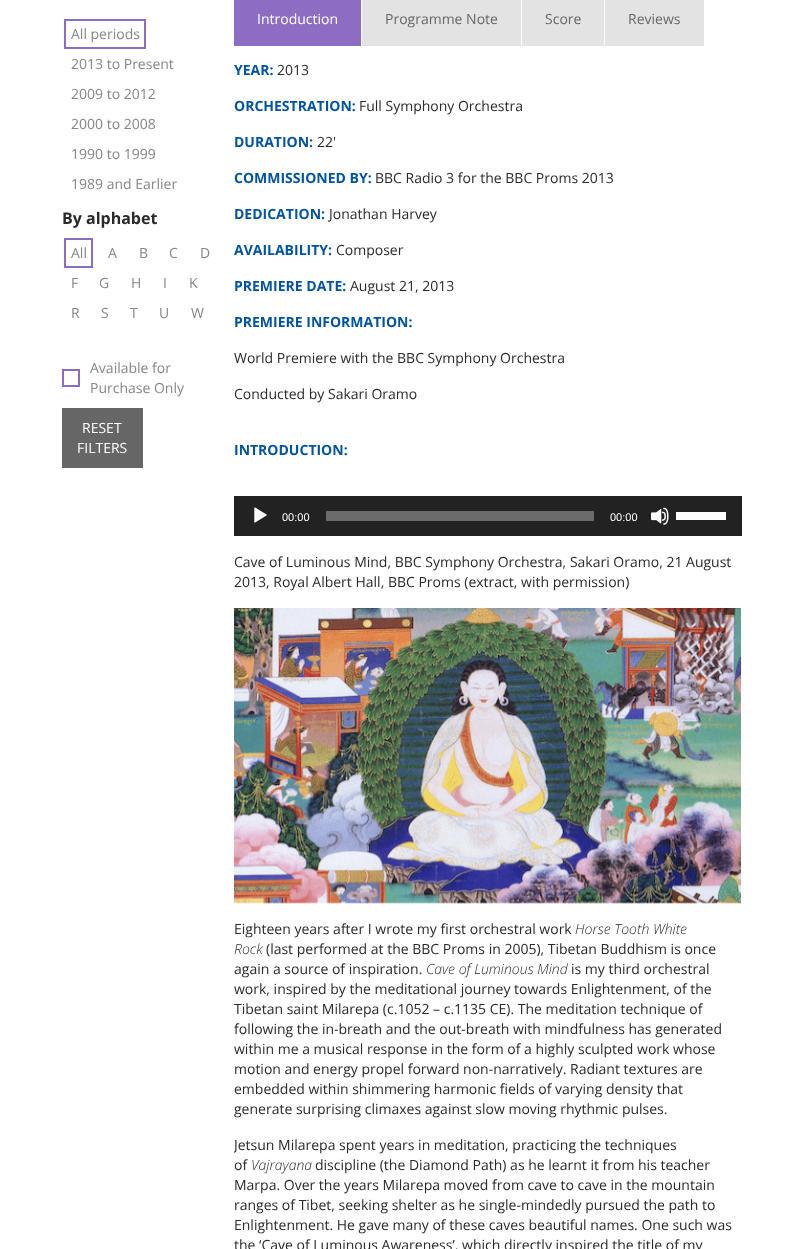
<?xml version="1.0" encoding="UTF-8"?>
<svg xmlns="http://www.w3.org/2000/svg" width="803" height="1249">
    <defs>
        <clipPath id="clip1"><rect x="234" y="46" width="508" height="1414"/></clipPath>
    </defs>
    <rect width="100%" height="100%" fill="#FFFFFF"/>
    <rect x="65" y="20" width="80" height="28" fill="none" stroke="#8D6DC4" stroke-width="2"/>
    <text x="71" y="39" font-family="Open Sans" font-size="14" fill="#868686">All periods</text>
    <text x="71" y="69" font-family="Open Sans" font-size="14" fill="#868686">2013 to Present</text>
    <text x="71" y="99" font-family="Open Sans" font-size="14" fill="#868686">2009 to 2012</text>
    <text x="71" y="129" font-family="Open Sans" font-size="14" fill="#868686">2000 to 2008</text>
    <text x="71" y="159" font-family="Open Sans" font-size="14" fill="#868686">1990 to 1999</text>
    <text x="71" y="189" font-family="Open Sans" font-size="14" fill="#868686">1989 and Earlier</text>
    <text x="62" y="224" font-family="Open Sans" font-size="16" font-weight="700" fill="#292929">By alphabet</text>
    <rect x="65" y="239" width="27" height="28" fill="none" stroke="#8D6DC4" stroke-width="2"/>
    <text x="71" y="258" font-family="Open Sans" font-size="14" fill="#868686">All</text>
    <text x="108" y="258" font-family="Open Sans" font-size="14" fill="#868686">A</text>
    <text x="139" y="258" font-family="Open Sans" font-size="14" fill="#868686">B</text>
    <text x="169" y="258" font-family="Open Sans" font-size="14" fill="#868686">C</text>
    <text x="200" y="258" font-family="Open Sans" font-size="14" fill="#868686">D</text>
    <text x="71" y="288" font-family="Open Sans" font-size="14" fill="#868686">F</text>
    <text x="99" y="288" font-family="Open Sans" font-size="14" fill="#868686">G</text>
    <text x="131" y="288" font-family="Open Sans" font-size="14" fill="#868686">H</text>
    <text x="163" y="288" font-family="Open Sans" font-size="14" fill="#868686">I</text>
    <text x="189" y="288" font-family="Open Sans" font-size="14" fill="#868686">K</text>
    <text x="71" y="318" font-family="Open Sans" font-size="14" fill="#868686">R</text>
    <text x="101" y="318" font-family="Open Sans" font-size="14" fill="#868686">S</text>
    <text x="130" y="318" font-family="Open Sans" font-size="14" fill="#868686">T</text>
    <text x="159" y="318" font-family="Open Sans" font-size="14" fill="#868686">U</text>
    <text x="191" y="318" font-family="Open Sans" font-size="14" fill="#868686">W</text>
    <rect x="63" y="370" width="16" height="16" fill="none" stroke="#8D6DC4" stroke-width="2"/>
    <text font-family="Open Sans" font-size="14" fill="#868686">
        <tspan x="90" y="373">Available for</tspan>
        <tspan x="90" y="393">Purchase Only</tspan>
    </text>
    <rect x="62" y="408" width="81" height="60" fill="#666666"/>
    <text x="82" y="433" font-family="Open Sans" font-size="14" fill="#FFFFFF">RESET</text>
    <text x="77" y="453" font-family="Open Sans" font-size="14" fill="#FFFFFF">FILTERS</text>
    <rect x="234" y="0" width="127" height="46" fill="#8D6DC4"/>
    <text x="257" y="24" font-family="Open Sans" font-size="14" fill="#FFFFFF">Introduction</text>
    <rect x="362" y="0" width="159" height="46" fill="#E3E3E3"/>
    <text x="385" y="24" font-family="Open Sans" font-size="14" fill="#666666">Programme Note</text>
    <rect x="522" y="0" width="82" height="46" fill="#E3E3E3"/>
    <text x="545" y="24" font-family="Open Sans" font-size="14" fill="#666666">Score</text>
    <rect x="605" y="0" width="99" height="46" fill="#E3E3E3"/>
    <text x="628" y="24" font-family="Open Sans" font-size="14" fill="#666666">Reviews</text>
    <text x="234" y="75" font-family="Open Sans" font-size="14" font-weight="700" fill="#00539E">YEAR:</text>
    <text x="277" y="75" font-family="Open Sans" font-size="14" fill="#292929">2013</text>
    <text x="234" y="111" font-family="Open Sans" font-size="14" font-weight="700" fill="#00539E">ORCHESTRATION:</text>
    <text x="359" y="111" font-family="Open Sans" font-size="14" fill="#292929">Full Symphony Orchestra</text>
    <text x="234" y="147" font-family="Open Sans" font-size="14" font-weight="700" fill="#00539E">DURATION:</text>
    <text x="317" y="147" font-family="Open Sans" font-size="14" fill="#292929">22'</text>
    <text x="234" y="183" font-family="Open Sans" font-size="14" font-weight="700" fill="#00539E">COMMISSIONED BY:</text>
    <text x="375" y="183" font-family="Open Sans" font-size="14" fill="#292929">BBC Radio 3 for the BBC Proms 2013</text>
    <text x="234" y="219" font-family="Open Sans" font-size="14" font-weight="700" fill="#00539E">DEDICATION:</text>
    <text x="329" y="219" font-family="Open Sans" font-size="14" fill="#292929">Jonathan Harvey</text>
    <text x="234" y="255" font-family="Open Sans" font-size="14" font-weight="700" fill="#00539E">AVAILABILITY:</text>
    <text x="336" y="255" font-family="Open Sans" font-size="14" fill="#292929">Composer</text>
    <text x="234" y="291" font-family="Open Sans" font-size="14" font-weight="700" fill="#00539E">PREMIERE DATE:</text>
    <text x="350" y="291" font-family="Open Sans" font-size="14" fill="#292929">August 21, 2013</text>
    <text x="234" y="327" font-family="Open Sans" font-size="14" font-weight="700" fill="#00539E">PREMIERE INFORMATION:</text>
    <text x="234" y="363" font-family="Open Sans" font-size="14" fill="#292929">World Premiere with the BBC Symphony Orchestra</text>
    <text x="234" y="399" font-family="Open Sans" font-size="14" fill="#292929">Conducted by Sakari Oramo</text>
    <text x="234" y="455" font-family="Open Sans" font-size="14" font-weight="700" fill="#00539E">INTRODUCTION:</text>
    <rect x="234" y="496" width="508" height="40" fill="#222222"/>
    <image x="254" y="507" width="13" height="16" href="img_01.png"/>
    <text x="282" y="521" font-family="Liberation Sans" font-size="11" fill="#FFFFFF">00:00</text>
    <rect x="326" y="511" width="268" height="10" fill="#6B6B6B"/>
    <text x="610" y="521" font-family="Liberation Sans" font-size="11" fill="#FFFFFF">00:00</text>
    <image x="651" y="507" width="18" height="18" href="img_02.png"/>
    <rect x="676" y="512" width="50" height="8" fill="#FFFFFF"/>
    <text font-family="Open Sans" font-size="14" fill="#292929">
        <tspan x="234" y="567">Cave of Luminous Mind, BBC Symphony Orchestra, Sakari Oramo, 21 August</tspan>
        <tspan x="234" y="587">2013, Royal Albert Hall, BBC Proms (extract, with permission)</tspan>
    </text>
    <image x="234" y="608" width="507" height="296" href="img_03.png"/>
    <text x="234" y="934" font-family="Open Sans" font-size="14" fill="#292929">Eighteen years after I wrote my first orchestral work</text>
    <text x="575" y="934" font-family="Open Sans" font-size="14" font-weight="300" font-style="italic" fill="#292929">Horse Tooth White</text>
    <text x="234" y="954" font-family="Open Sans" font-size="14" font-weight="300" font-style="italic" fill="#292929">Rock</text>
    <text x="266" y="954" font-family="Open Sans" font-size="14" fill="#292929">(last performed at the BBC Proms in 2005), Tibetan Buddhism is once</text>
    <text x="234" y="974" font-family="Open Sans" font-size="14" fill="#292929">again a source of inspiration.</text>
    <text x="426" y="974" font-family="Open Sans" font-size="14" font-weight="300" font-style="italic" fill="#292929">Cave of Luminous Mind</text>
    <text x="571" y="974" font-family="Open Sans" font-size="14" fill="#292929">is my third orchestral</text>
    <text font-family="Open Sans" font-size="14" fill="#292929">
        <tspan x="234" y="994">work, inspired by the meditational journey towards Enlightenment, of the</tspan>
        <tspan x="234" y="1014">Tibetan saint Milarepa (c.1052 – c.1135 CE). The meditation technique of</tspan>
        <tspan x="234" y="1034">following the in-breath and the out-breath with mindfulness has generated</tspan>
        <tspan x="234" y="1054">within me a musical response in the form of a highly sculpted work whose</tspan>
        <tspan x="234" y="1074">motion and energy propel forward non-narratively. Radiant textures are</tspan>
        <tspan x="234" y="1094">embedded within shimmering harmonic fields of varying density that</tspan>
        <tspan x="234" y="1114">generate surprising climaxes against slow moving rhythmic pulses.</tspan>
    </text>
    <g clip-path="url(#clip1)">
        <text x="234" y="1150" font-family="Open Sans" font-size="14" fill="#292929">Jetsun Milarepa spent years in meditation, practicing the techniques</text>
    </g>
    <text x="234" y="1170" font-family="Open Sans" font-size="14" fill="#292929">of</text>
    <text x="251" y="1170" font-family="Open Sans" font-size="14" font-weight="300" font-style="italic" fill="#292929">Vajrayana</text>
    <text x="315" y="1170" font-family="Open Sans" font-size="14" fill="#292929">discipline (the Diamond Path) as he learnt it from his teacher</text>
    <text font-family="Open Sans" font-size="14" fill="#292929">
        <tspan x="234" y="1190">Marpa. Over the years Milarepa moved from cave to cave in the mountain</tspan>
        <tspan x="234" y="1210">ranges of Tibet, seeking shelter as he single-mindedly pursued the path to</tspan>
        <tspan x="234" y="1230">Enlightenment. He gave many of these caves beautiful names. One such was</tspan>
        <tspan x="234" y="1250">the ‘Cave of Luminous Awareness’, which directly inspired the title of my</tspan>
    </text>
</svg>
